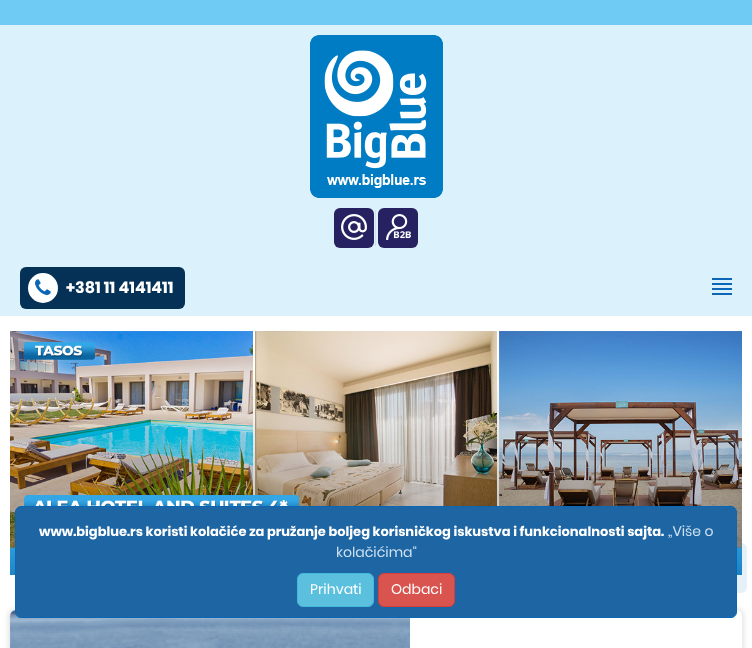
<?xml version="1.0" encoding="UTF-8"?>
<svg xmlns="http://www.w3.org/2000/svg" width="752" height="648">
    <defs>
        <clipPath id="clip1"><path d="M 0 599 H 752 V 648 H 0 Z M 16 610 H 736 C 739.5 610 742 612.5 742 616 V 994 C 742 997.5 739.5 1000 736 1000 H 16 C 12.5 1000 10 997.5 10 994 V 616 C 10 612.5 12.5 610 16 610 Z" clip-rule="evenodd"/></clipPath>
        <filter id="blur1" x="-50%" y="-200%" width="200%" height="500%"><feGaussianBlur stdDeviation="2.5"/></filter>
    </defs>
    <rect width="100%" height="100%" fill="#FFFFFF"/>
    <rect x="0" y="25" width="752" height="291" fill="#DBF2FC"/>
    <rect x="0" y="0" width="752" height="25" fill="#70CBF4"/>
    <image x="310" y="35" width="133" height="163" href="img_01.png"/>
    <rect x="334" y="208" width="40" height="40" rx="6" fill="#262161"/>
    <image x="341" y="214" width="26" height="26" href="img_02.png"/>
    <rect x="378" y="208" width="40" height="40" rx="6" fill="#262161"/>
    <rect x="375" y="210" width="1" height="36" fill="#CEE1F0"/>
    <image x="386" y="214" width="25" height="26" href="img_03.png"/>
    <rect x="20" y="267" width="165" height="42" rx="6" fill="#053156"/>
    <circle cx="43" cy="288" r="15" fill="#FFFFFF"/>
    <image x="35" y="279" width="16" height="16" href="img_04.png"/>
    <text x="66" y="293" font-family="Poppins" font-size="16" font-weight="700" fill="#FFFFFF">+381 11 4141411</text>
    <rect x="712" y="278" width="20" height="2" fill="#0B67B6"/>
    <rect x="712" y="283" width="20" height="2" fill="#0B67B6"/>
    <rect x="712" y="288" width="20" height="2" fill="#0B67B6"/>
    <rect x="712" y="293" width="20" height="2" fill="#0B67B6"/>
    <image x="10" y="331" width="732" height="244" href="img_05.png"/>
    <g clip-path="url(#clip1)">
        <rect x="8" y="608" width="736" height="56" rx="8" fill="#000000" fill-opacity="0.1" filter="url(#blur1)"/>
    </g>
    <image x="10" y="610" width="400" height="38" href="img_06.png"/>
    <rect x="697" y="543" width="50" height="50" rx="6" fill="#0B67B6" fill-opacity="0.1"/>
    <rect x="15.5" y="506.5" width="721" height="111" rx="5.5" fill="#1E66A3" stroke="#0B67B6"/>
    <text x="39" y="536" font-family="Poppins" font-size="13" font-weight="700" fill="#FFFFFF">www.bigblue.rs koristi kolačiće za pružanje boljeg korisničkog iskustva i funkcionalnosti sajta.</text>
    <text x="668" y="536" font-family="Poppins" font-size="14" fill="#CEE1F0">„Više o</text>
    <text x="336" y="557" font-family="Poppins" font-size="14" fill="#CEE1F0">kolačićima“</text>
    <rect x="297.5" y="573.5" width="76" height="33" rx="5.5" fill="#5BC0DE" stroke="#46B8DA"/>
    <text x="310" y="594" font-family="Poppins" font-size="14" fill="#FFFFFF">Prihvati</text>
    <rect x="378.5" y="573.5" width="76" height="33" rx="5.5" fill="#D9534F" stroke="#D43F3A"/>
    <text x="391" y="594" font-family="Poppins" font-size="14" fill="#FFFFFF">Odbaci</text>
</svg>
